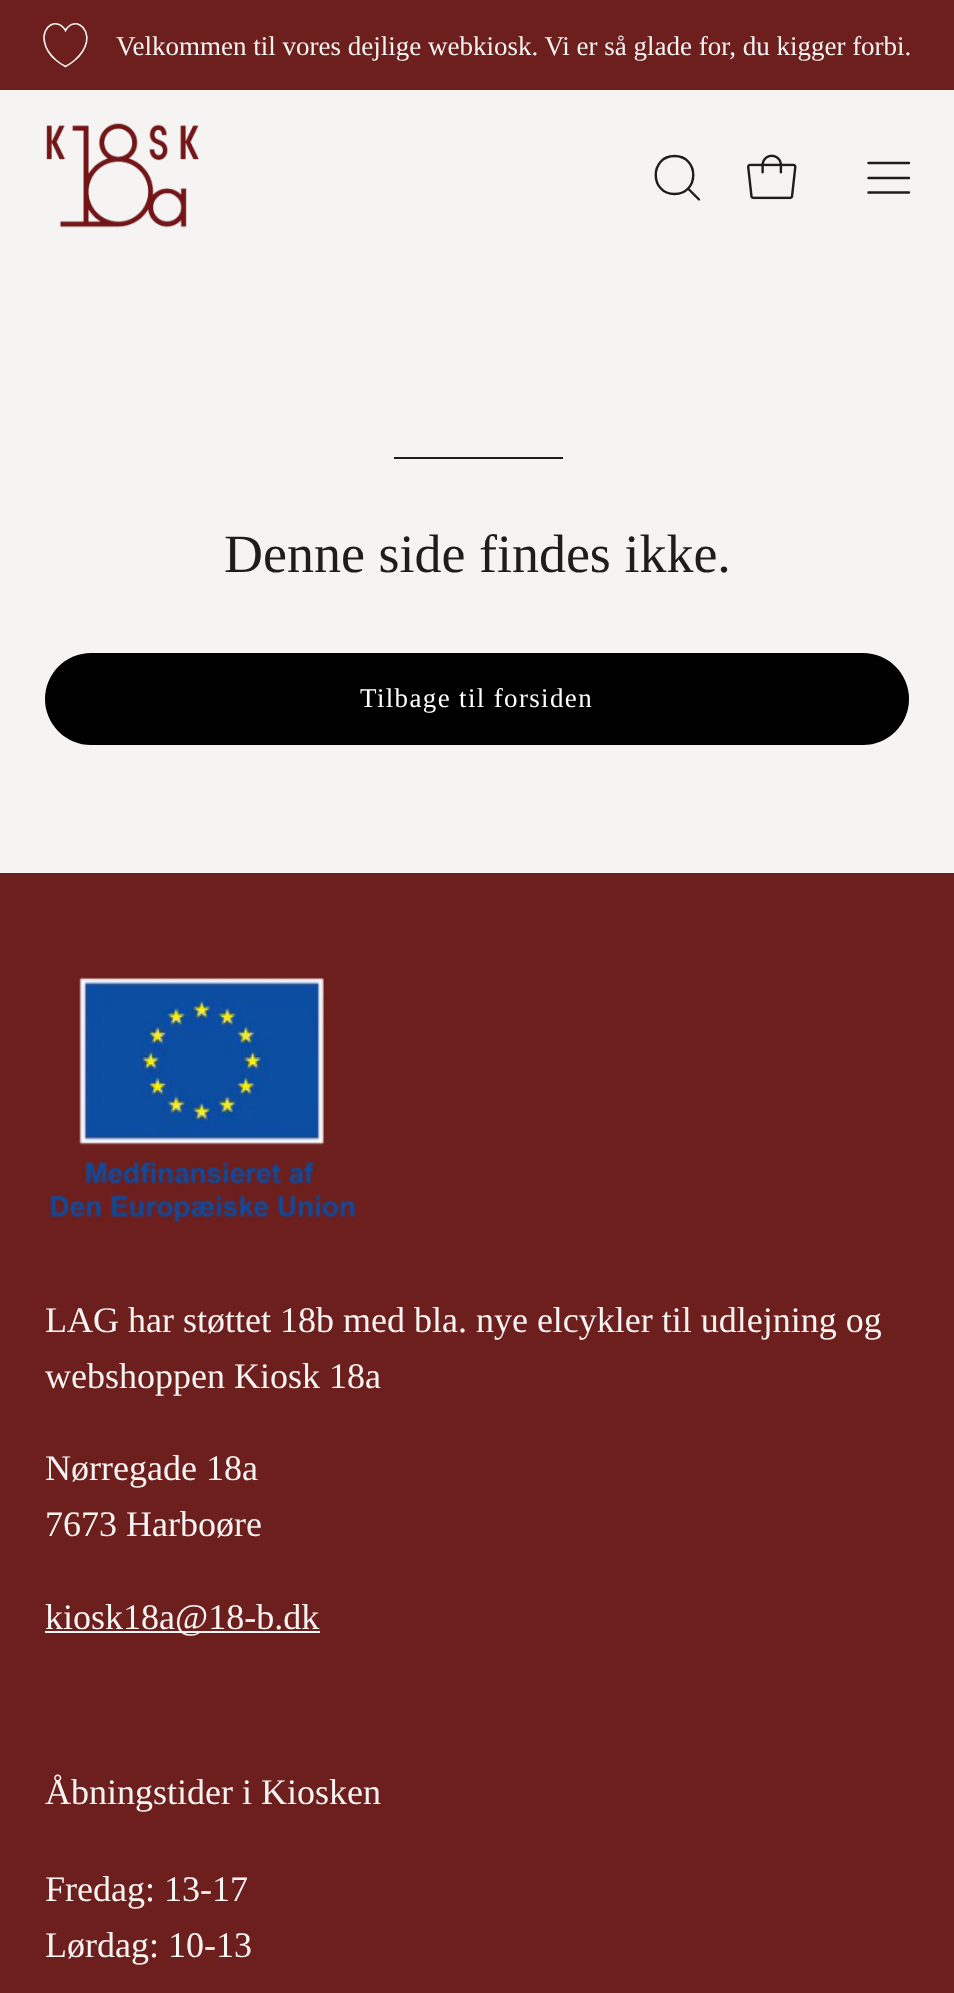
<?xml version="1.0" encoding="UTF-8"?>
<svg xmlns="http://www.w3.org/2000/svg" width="954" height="1993">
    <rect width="100%" height="100%" fill="#F5F4F3"/>
    <rect x="0" y="0" width="954" height="90" fill="#6D1F1D"/>
    <path d="M 65.5 30.5 C 57.5 16.5 41 26 44.5 42 C 47.5 58 65.5 66.5 65.5 66.5 C 65.5 66.5 83 58 86.5 42 C 89.5 26 73 16.5 65.5 30.5 Z" fill="none" stroke="#F5F4F3" stroke-width="1.6"/>
    <text x="116" y="55" font-family="Liberation Serif" font-size="27" fill="#F5F4F3">Velkommen til vores dejlige webkiosk. Vi er så glade for, du kigger forbi.</text>
    <image x="46" y="123" width="153" height="105" href="img_01.png"/>
    <path d="M 674.5 194 C 699.5 194 699.5 156 674.5 156 C 649.5 156 649.5 194 674.5 194 Z M 688 188.5 L 699 199.5" fill="none" stroke="#1D1D1D" stroke-width="2.4" stroke-linecap="round" stroke-linejoin="round"/>
    <image x="747" y="154" width="50" height="46" href="img_02.png"/>
    <path d="M 868.5 178 H 909 M 868.5 163 H 909 M 868.5 192.5 H 909" fill="none" stroke="#1D1D1D" stroke-width="2.4" stroke-linecap="round" stroke-linejoin="round"/>
    <rect x="394" y="457" width="169" height="2" fill="#1D1D1D"/>
    <text x="224" y="572" font-family="Liberation Serif" font-size="54" fill="#1D1D1D">Denne side findes ikke.</text>
    <rect x="45" y="653" width="864" height="92" rx="46" fill="#000000"/>
    <text x="360" y="707" font-family="Liberation Serif" font-size="27" letter-spacing="1.35" fill="#FFFFFF">Tilbage til forsiden</text>
    <rect x="0" y="873" width="954" height="1120" fill="#6D1F1D"/>
    <image x="50" y="977" width="306" height="246" href="img_03.png"/>
    <text font-family="Liberation Serif" font-size="36" fill="#F5F4F3">
        <tspan x="45" y="1332">LAG har støttet 18b med bla. nye elcykler til udlejning og</tspan>
        <tspan x="45" y="1388">webshoppen Kiosk 18a</tspan>
    </text>
    <text font-family="Liberation Serif" font-size="36" fill="#F5F4F3">
        <tspan x="45" y="1480">Nørregade 18a</tspan>
        <tspan x="45" y="1536">7673 Harboøre</tspan>
    </text>
    <rect x="45" y="1631" width="275" height="2" fill="#F5F4F3"/>
    <text x="45" y="1629" font-family="Liberation Serif" font-size="36" fill="#F5F4F3">kiosk18a@18-b.dk</text>
    <text x="45" y="1804" font-family="Liberation Serif" font-size="36" fill="#F5F4F3">Åbningstider i Kiosken</text>
    <text font-family="Liberation Serif" font-size="36" fill="#F5F4F3">
        <tspan x="45" y="1901">Fredag: 13-17</tspan>
        <tspan x="45" y="1957">Lørdag: 10-13</tspan>
    </text>
</svg>
